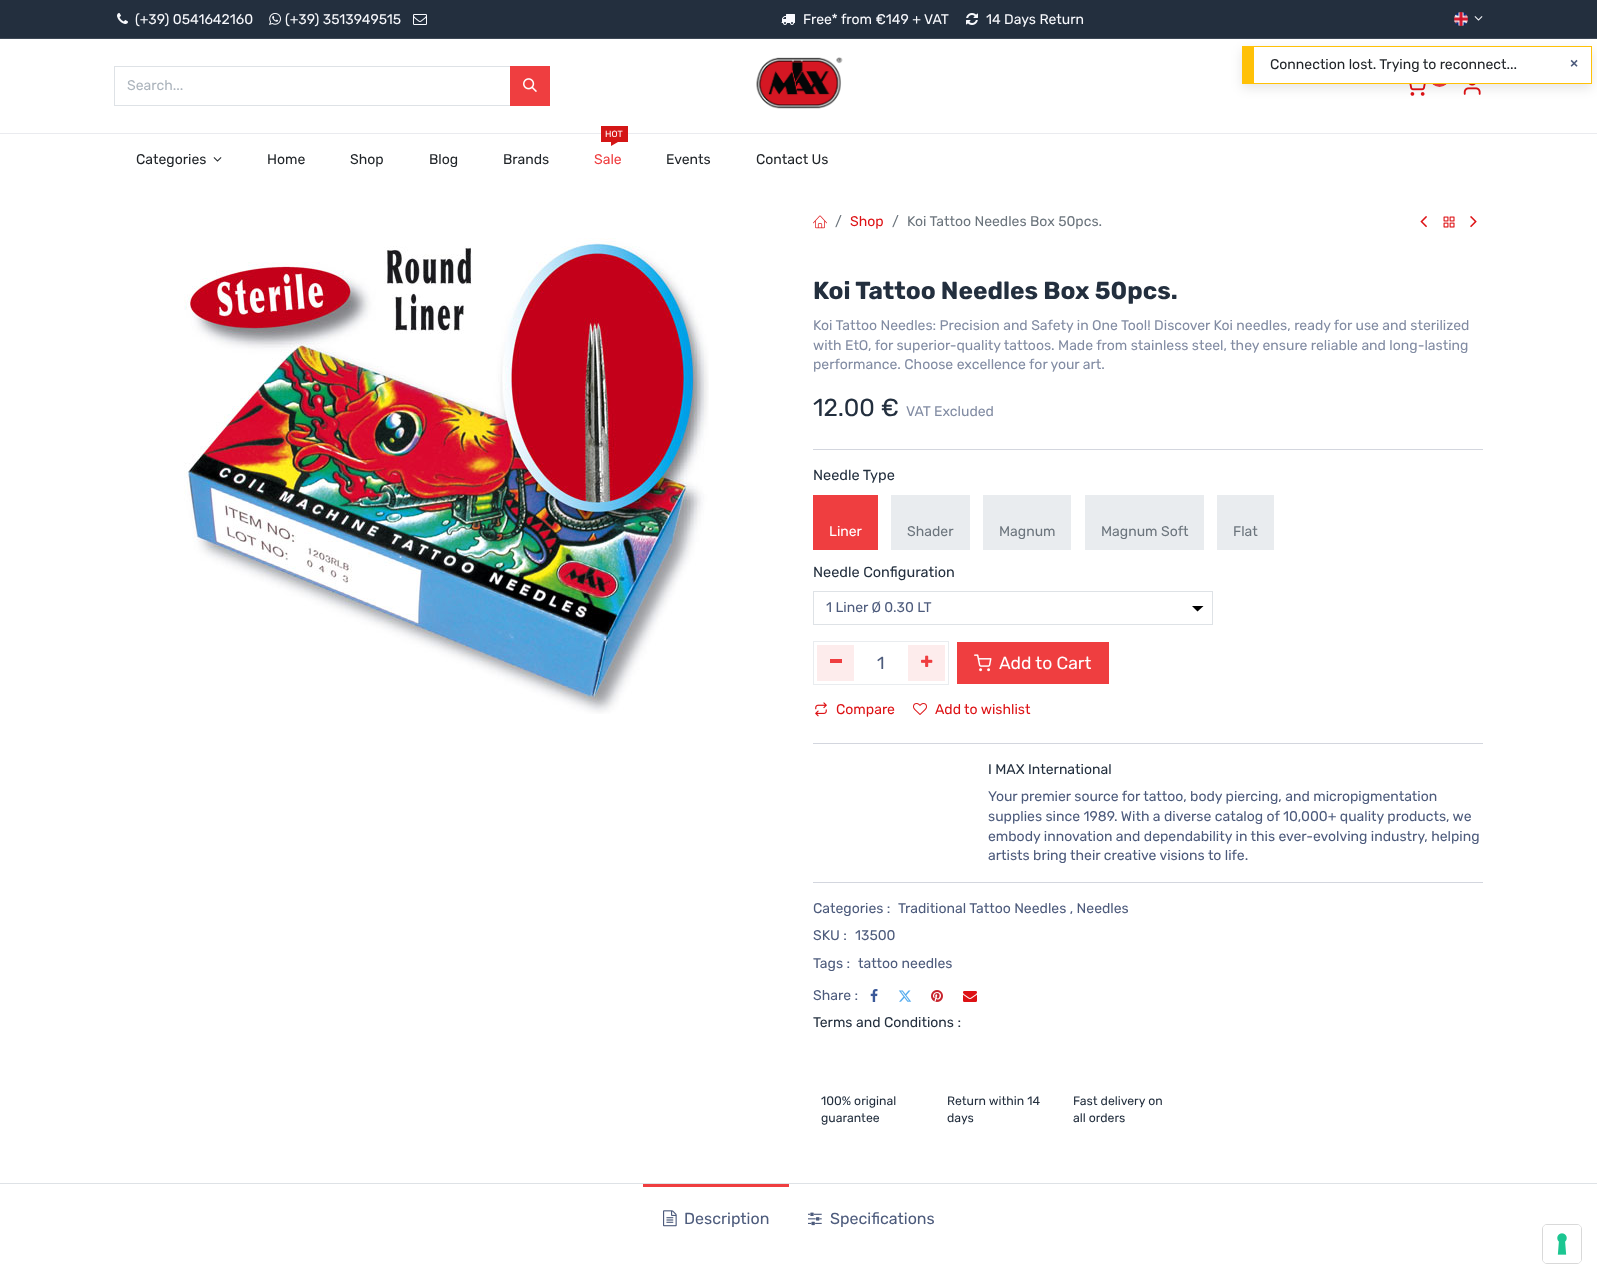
<?xml version="1.0" encoding="UTF-8"?>
<svg xmlns="http://www.w3.org/2000/svg" width="1597" height="1279">
    <defs>
        <filter id="blur1" x="-50%" y="-200%" width="200%" height="500%"><feGaussianBlur stdDeviation="6"/></filter>
    </defs>
    <rect width="100%" height="100%" fill="#FFFFFF"/>
    <rect x="0" y="0" width="1597" height="38" fill="#232F3E"/>
    <rect x="0" y="38" width="1597" height="1" fill="#3D4855"/>
    <image x="117" y="13" width="11" height="11" href="img_01.png"/>
    <text x="135" y="24" font-family="Rubik" font-size="14" fill="#F9FAFE">(+39) 0541642160</text>
    <image x="269" y="13" width="12" height="12" href="img_02.png"/>
    <text x="285" y="24" font-family="Rubik" font-size="14" fill="#F9FAFE">(+39) 3513949515</text>
    <image x="413" y="14" width="14" height="11" href="img_03.png"/>
    <image x="781" y="14" width="14" height="11" href="img_04.png"/>
    <text x="803" y="24" font-family="Rubik" font-size="14" fill="#F9FAFE">Free* from €149 + VAT</text>
    <image x="966" y="13" width="12" height="12" href="img_05.png"/>
    <text x="986" y="24" font-family="Rubik" font-size="14" fill="#F9FAFE">14 Days Return</text>
    <image x="1454" y="12" width="14" height="14" href="img_06.png"/>
    <image x="1474" y="16" width="9" height="5" href="img_07.png"/>
    <rect x="0" y="133" width="1597" height="1" fill="#EAEBEF"/>
    <rect x="114.5" y="66.5" width="396" height="39" fill="none" stroke="#DEE2E6"/>
    <text x="127" y="90" font-family="Rubik" font-size="14" fill="#ADB5BD">Search...</text>
    <rect x="510" y="66" width="40" height="40" fill="#EF3E40"/>
    <image x="523" y="78" width="14" height="14" href="img_08.png"/>
    <image x="756" y="57" width="87" height="52" href="img_09.png"/>
    <circle cx="1439.5" cy="77.5" r="9.5" fill="#EF3E40"/>
    <image x="1409" y="84" width="17" height="12" href="img_10.png"/>
    <image x="1463" y="84" width="18" height="11" href="img_11.png"/>
    <text x="136" y="164" font-family="Rubik" font-size="14" fill="#212529">Categories</text>
    <image x="213" y="157" width="9" height="5" href="img_12.png"/>
    <text x="267" y="164" font-family="Rubik" font-size="14" fill="#212529">Home</text>
    <text x="350" y="164" font-family="Rubik" font-size="14" fill="#212529">Shop</text>
    <text x="429" y="164" font-family="Rubik" font-size="14" fill="#212529">Blog</text>
    <text x="503" y="164" font-family="Rubik" font-size="14" fill="#212529">Brands</text>
    <rect x="601" y="126" width="27" height="16" fill="#D41616"/>
    <text x="605" y="137" font-family="Rubik" font-size="9" fill="#FFFFFF">HOT</text>
    <path d="M 611 142 H 618 L 611 146 Z" fill="#D41616"/>
    <text x="594" y="164" font-family="Rubik" font-size="14" fill="#EF3E40">Sale</text>
    <text x="666" y="164" font-family="Rubik" font-size="14" fill="#212529">Events</text>
    <text x="756" y="164" font-family="Rubik" font-size="14" fill="#212529">Contact Us</text>
    <image x="184" y="238" width="525" height="476" href="img_13.png"/>
    <image x="813" y="215" width="14" height="14" href="img_14.png"/>
    <text x="835" y="226" font-family="Rubik" font-size="14" fill="#6C757D">/</text>
    <text x="850" y="226" font-family="Rubik" font-size="14" fill="#DD1215">Shop</text>
    <text x="892" y="226" font-family="Rubik" font-size="14" fill="#6C757D">/</text>
    <text x="907" y="226" font-family="Rubik" font-size="14" fill="#6C757D">Koi Tattoo Needles Box 50pcs.</text>
    <image x="1420" y="216" width="7" height="12" href="img_15.png"/>
    <image x="1443" y="216" width="12" height="12" href="img_16.png"/>
    <image x="1470" y="216" width="7" height="12" href="img_17.png"/>
    <text x="813" y="299" font-family="Rubik" font-size="24.5" font-weight="700" fill="#232F3E">Koi Tattoo Needles Box 50pcs.</text>
    <text font-family="Rubik" font-size="14" fill="#828CA3">
        <tspan x="813" y="330">Koi Tattoo Needles: Precision and Safety in One Tool! Discover Koi needles, ready for use and sterilized</tspan>
        <tspan x="813" y="350">with EtO, for superior-quality tattoos. Made from stainless steel, they ensure reliable and long-lasting</tspan>
        <tspan x="813" y="369">performance. Choose excellence for your art.</tspan>
    </text>
    <text x="813" y="416" font-family="Rubik" font-size="24.5" fill="#232F3E">12.00 €</text>
    <text x="906" y="416" font-family="Rubik" font-size="14" fill="#828CA3">VAT Excluded</text>
    <rect x="813" y="449" width="670" height="1" fill="#D3D6DE"/>
    <text x="813" y="480" font-family="Rubik" font-size="14.5" fill="#232F3E">Needle Type</text>
    <rect x="813" y="495" width="65" height="55" fill="#EF3E40"/>
    <text x="829" y="536" font-family="Rubik" font-size="14" fill="#FFFFFF">Liner</text>
    <rect x="891" y="495" width="79" height="55" fill="#E9ECEF"/>
    <text x="907" y="536" font-family="Rubik" font-size="14" fill="#6C757D">Shader</text>
    <rect x="983" y="495" width="88" height="55" fill="#E9ECEF"/>
    <text x="999" y="536" font-family="Rubik" font-size="14" fill="#6C757D">Magnum</text>
    <rect x="1085" y="495" width="119" height="55" fill="#E9ECEF"/>
    <text x="1101" y="536" font-family="Rubik" font-size="14" fill="#6C757D">Magnum Soft</text>
    <rect x="1217" y="495" width="57" height="55" fill="#E9ECEF"/>
    <text x="1233" y="536" font-family="Rubik" font-size="14" fill="#6C757D">Flat</text>
    <text x="813" y="577" font-family="Rubik" font-size="14.5" fill="#232F3E">Needle Configuration</text>
    <path d="M 1192 606 H 1203.5 L 1197.5 611.5 Z" fill="#000000"/>
    <rect x="813.5" y="591.5" width="399" height="33" fill="none" stroke="#DEE2E6"/>
    <text x="826" y="612" font-family="Rubik" font-size="14" fill="#4D5B7C">1 Liner Ø 0.30 LT</text>
    <rect x="813.5" y="641.5" width="135" height="43" fill="none" stroke="#E9ECEF"/>
    <rect x="817" y="645" width="37" height="36" fill="#FDECEC"/>
    <rect x="830" y="659" width="12" height="4" fill="#EF3E40"/>
    <text x="877" y="669" font-family="Rubik" font-size="17.5" fill="#4D5B7C">1</text>
    <rect x="908" y="645" width="37" height="36" fill="#FDECEC"/>
    <image x="921" y="655" width="12" height="12" href="img_18.png"/>
    <rect x="957" y="642" width="152" height="42" fill="#EF3E40"/>
    <image x="974" y="654" width="18" height="18" href="img_19.png"/>
    <text x="999" y="669" font-family="Rubik" font-size="17.5" fill="#FFFFFF">Add to Cart</text>
    <image x="815" y="702" width="12" height="15" href="img_20.png"/>
    <text x="836" y="714" font-family="Rubik" font-size="14" fill="#DD1215">Compare</text>
    <image x="913" y="703" width="14" height="12" href="img_21.png"/>
    <text x="935" y="714" font-family="Rubik" font-size="14" fill="#DD1215">Add to wishlist</text>
    <rect x="813" y="743" width="670" height="1" fill="#D3D6DE"/>
    <text x="988" y="774" font-family="Rubik" font-size="14" fill="#232F3E">I MAX International</text>
    <text font-family="Rubik" font-size="14" fill="#4D5B7C">
        <tspan x="988" y="801">Your premier source for tattoo, body piercing, and micropigmentation</tspan>
        <tspan x="988" y="821">supplies since 1989. With a diverse catalog of 10,000+ quality products, we</tspan>
        <tspan x="988" y="841">embody innovation and dependability in this ever-evolving industry, helping</tspan>
        <tspan x="988" y="860">artists bring their creative visions to life.</tspan>
    </text>
    <rect x="813" y="882" width="670" height="1" fill="#D3D6DE"/>
    <text x="813" y="913" font-family="Rubik" font-size="14" fill="#4D5B7C">Categories :</text>
    <text x="898" y="913" font-family="Rubik" font-size="14" fill="#4D5B7C">Traditional Tattoo Needles , Needles</text>
    <text x="813" y="940" font-family="Rubik" font-size="14" fill="#4D5B7C">SKU :</text>
    <text x="855" y="940" font-family="Rubik" font-size="14" fill="#4D5B7C">13500</text>
    <text x="813" y="968" font-family="Rubik" font-size="14" fill="#4D5B7C">Tags :</text>
    <text x="858" y="968" font-family="Rubik" font-size="14" fill="#4D5B7C">tattoo needles</text>
    <text x="813" y="1000" font-family="Rubik" font-size="14" fill="#4D5B7C">Share :</text>
    <image x="870" y="989" width="8" height="13" href="img_22.png"/>
    <image x="898" y="990" width="14" height="12" href="img_23.png"/>
    <image x="931" y="990" width="12" height="12" href="img_24.png"/>
    <image x="963" y="991" width="14" height="11" href="img_25.png"/>
    <text x="813" y="1027" font-family="Rubik" font-size="14" fill="#232F3E">Terms and Conditions :</text>
    <text font-family="Rubik" font-size="12.25" fill="#232F3E">
        <tspan x="821" y="1105">100% original</tspan>
        <tspan x="821" y="1122">guarantee</tspan>
    </text>
    <text font-family="Rubik" font-size="12.25" fill="#232F3E">
        <tspan x="947" y="1105">Return within 14</tspan>
        <tspan x="947" y="1122">days</tspan>
    </text>
    <text font-family="Rubik" font-size="12.25" fill="#232F3E">
        <tspan x="1073" y="1105">Fast delivery on</tspan>
        <tspan x="1073" y="1122">all orders</tspan>
    </text>
    <rect x="0" y="1183" width="1597" height="1" fill="#DEE2E6"/>
    <rect x="643" y="1184" width="146" height="3" fill="#EF3E40"/>
    <image x="663" y="1210" width="14" height="17" href="img_26.png"/>
    <text x="684" y="1224" font-family="Rubik" font-size="16" fill="#4D5B7C">Description</text>
    <image x="808" y="1212" width="14" height="14" href="img_27.png"/>
    <text x="830" y="1224" font-family="Rubik" font-size="16" fill="#4D5B7C">Specifications</text>
    <rect x="1242" y="50" width="350" height="38" fill="#000000" fill-opacity="0.1" filter="url(#blur1)"/>
    <rect x="1254" y="47" width="337" height="36" fill="#FFFFFF"/>
    <rect x="1254" y="46" width="338" height="1" fill="#FFC107"/>
    <rect x="1591" y="46" width="1" height="38" fill="#FFC107"/>
    <rect x="1254" y="83" width="338" height="1" fill="#FFC107"/>
    <rect x="1242" y="46" width="12" height="38" fill="#FFC107"/>
    <text x="1270" y="69" font-family="Rubik" font-size="14" fill="#212529">Connection lost. Trying to reconnect...</text>
    <text x="1570" y="68" font-family="Liberation Sans" font-size="14" font-weight="700" fill="#4D5B7C">×</text>
    <rect x="1542.5" y="1224.5" width="39" height="39" rx="4.5" fill="none" stroke="#D9D9D9"/>
    <rect x="1543" y="1225" width="38" height="38" rx="4" fill="#FFFFFF"/>
    <image x="1557" y="1233" width="10" height="22" href="img_28.png"/>
</svg>
